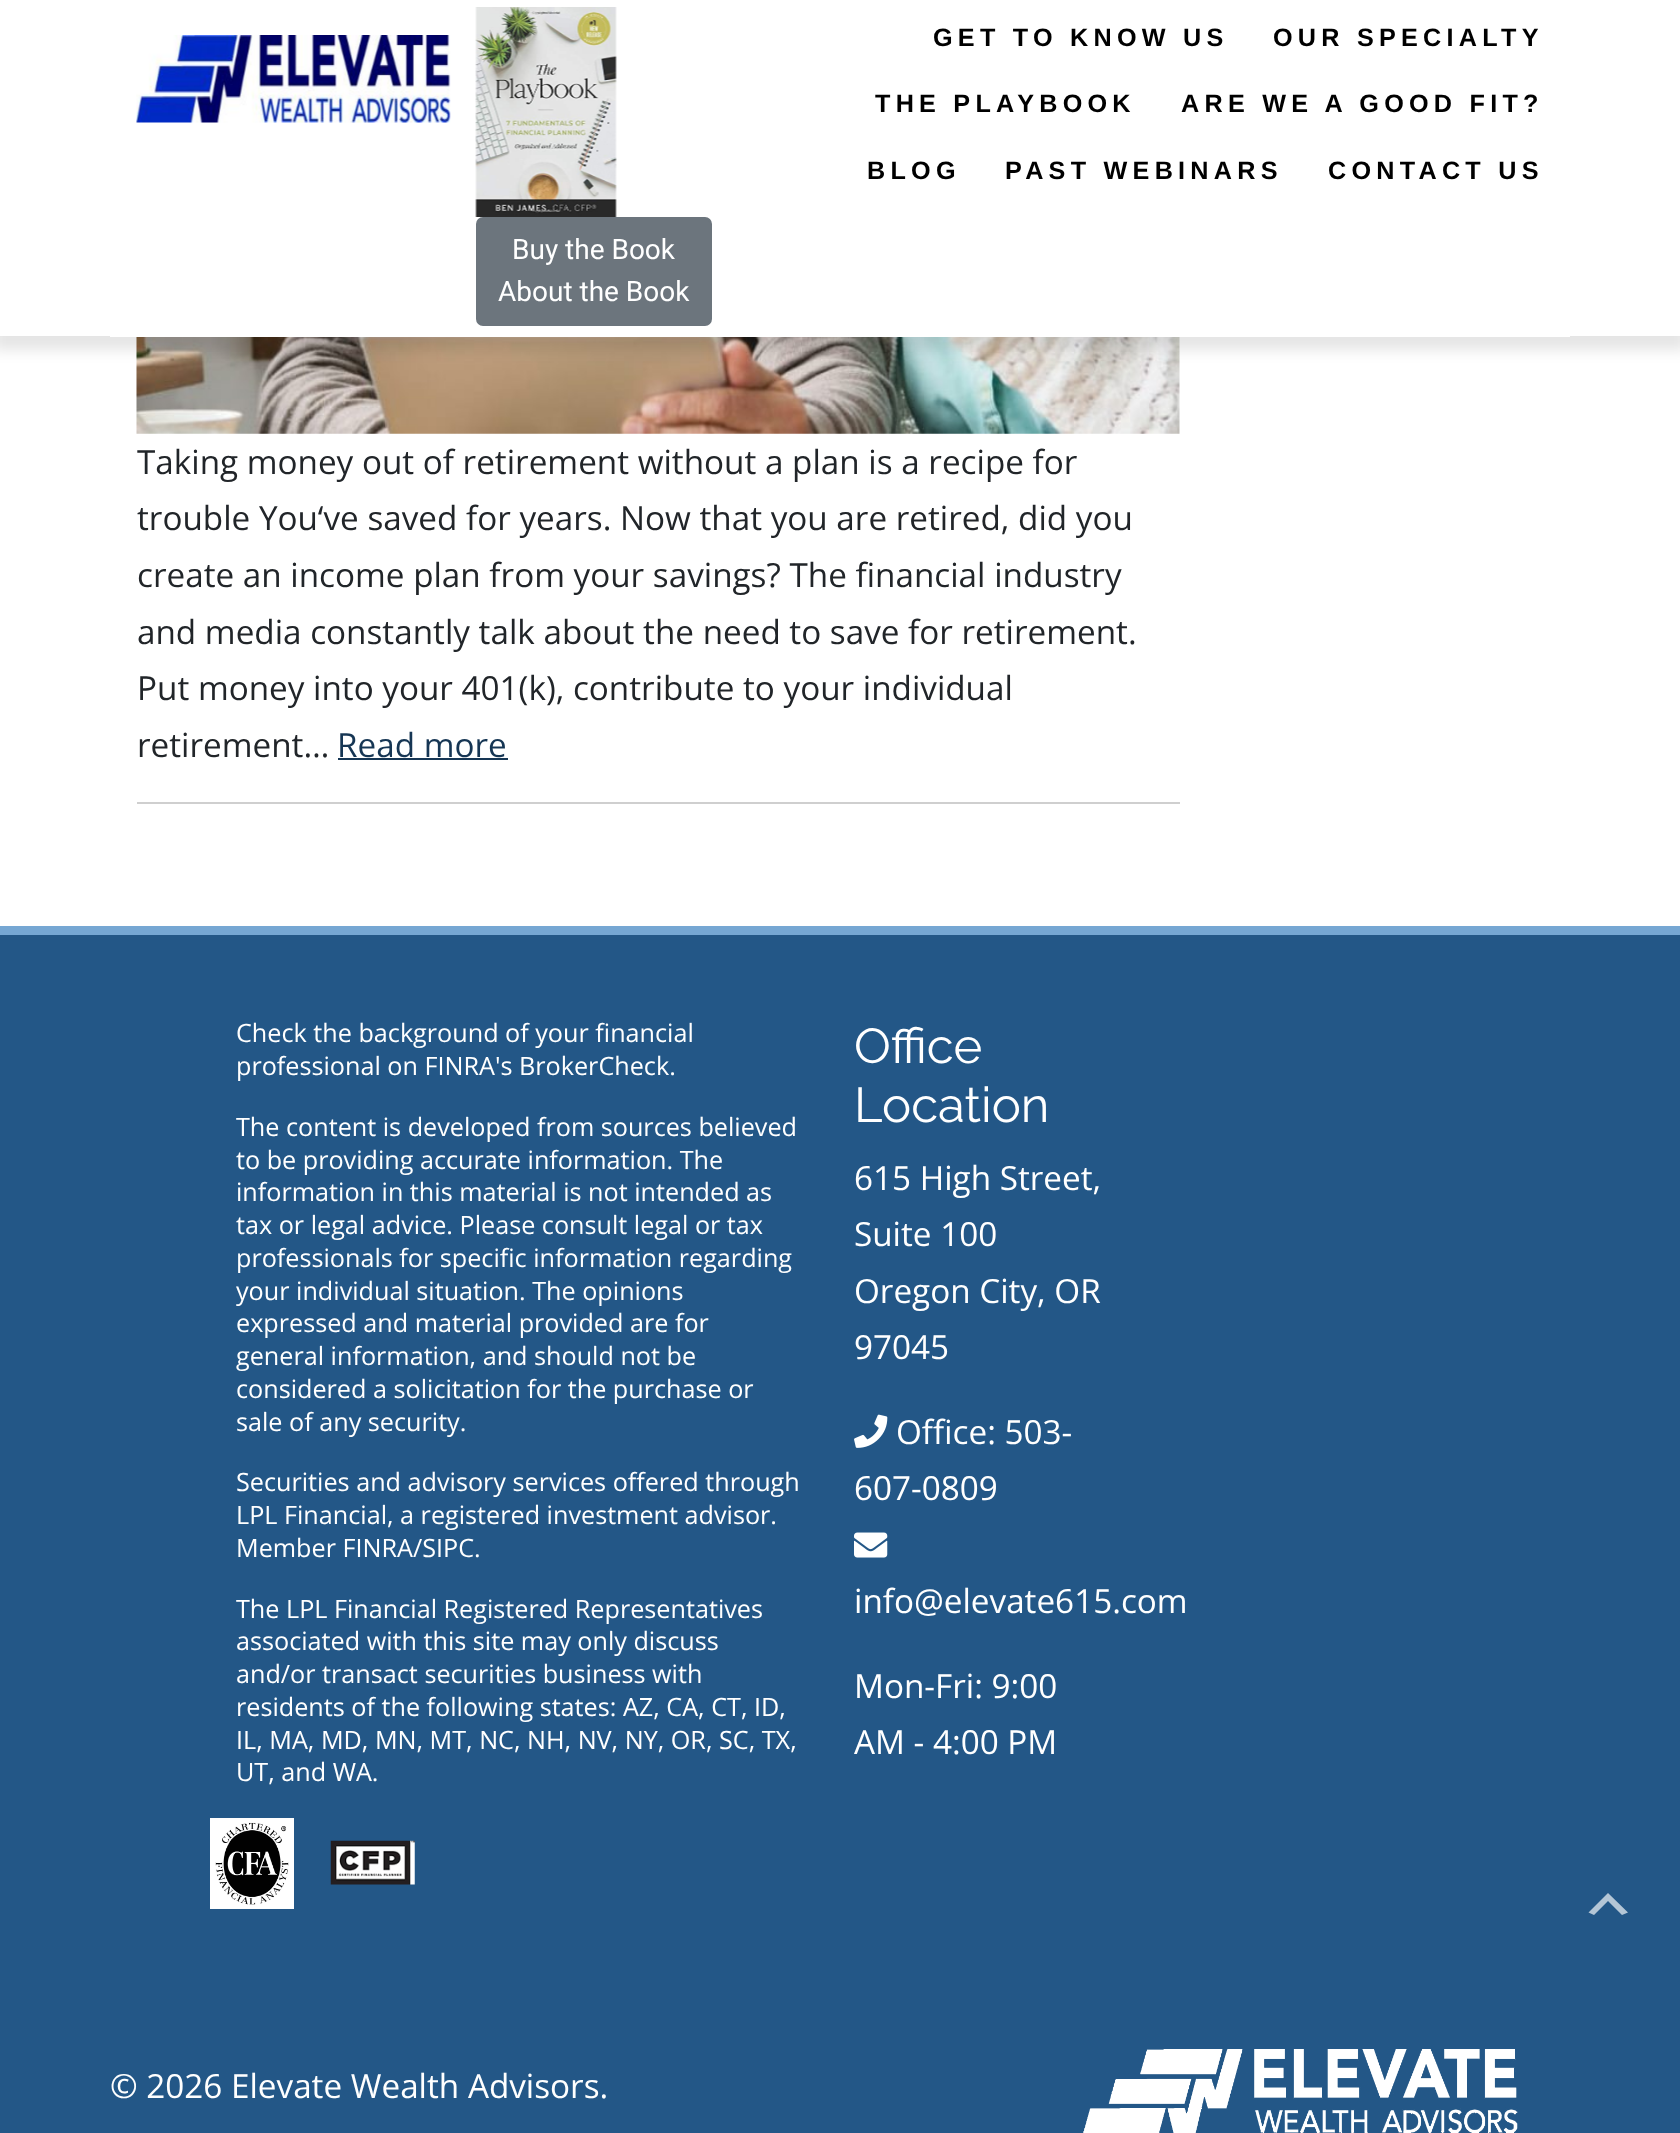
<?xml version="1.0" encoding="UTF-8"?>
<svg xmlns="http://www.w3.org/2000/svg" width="1680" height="2133">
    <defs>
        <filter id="blur1" x="-50%" y="-200%" width="200%" height="500%"><feGaussianBlur stdDeviation="7"/></filter>
    </defs>
    <rect width="100%" height="100%" fill="#FFFFFF"/>
    <image x="136" y="337" width="1044" height="97" href="img_03.png"/>
    <rect x="-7" y="0" width="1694" height="350" fill="#000000" fill-opacity="0.1" filter="url(#blur1)"/>
    <rect x="0" y="0" width="1680" height="336" fill="#FFFFFF"/>
    <rect x="110" y="336" width="1460" height="1" fill="#FFFFFF"/>
    <image x="136" y="35" width="315" height="88" href="img_01.png"/>
    <text x="933" y="46" font-family="Liberation Sans" font-size="25.2" font-weight="700" letter-spacing="5.25" fill="#000000">GET TO KNOW US</text>
    <text x="1273" y="46" font-family="Liberation Sans" font-size="25.2" font-weight="700" letter-spacing="5.25" fill="#000000">OUR SPECIALTY</text>
    <text x="875" y="112" font-family="Liberation Sans" font-size="25.2" font-weight="700" letter-spacing="5.25" fill="#000000">THE PLAYBOOK</text>
    <text x="1181" y="112" font-family="Liberation Sans" font-size="25.2" font-weight="700" letter-spacing="5.25" fill="#000000">ARE WE A GOOD FIT?</text>
    <text x="867" y="179" font-family="Liberation Sans" font-size="25.2" font-weight="700" letter-spacing="5.25" fill="#000000">BLOG</text>
    <text x="1005" y="179" font-family="Liberation Sans" font-size="25.2" font-weight="700" letter-spacing="5.25" fill="#000000">PAST WEBINARS</text>
    <text x="1328" y="179" font-family="Liberation Sans" font-size="25.2" font-weight="700" letter-spacing="5.25" fill="#000000">CONTACT US</text>
    <image x="475" y="7" width="142" height="210" href="img_02.png"/>
    <rect x="477" y="218" width="234" height="107" rx="6" fill="#6C757D" stroke="#6C757D" stroke-width="2"/>
    <text x="512" y="259" font-family="Roboto" font-size="28" fill="#FFFFFF">Buy the Book</text>
    <text x="498" y="301" font-family="Roboto" font-size="28" fill="#FFFFFF">About the Book</text>
    <rect x="137" y="802" width="1043" height="2" fill="#CFCFCF"/>
    <text font-family="Open Sans" font-size="33.25" fill="#212529">
        <tspan x="137" y="474">Taking money out of retirement without a plan is a recipe for</tspan>
        <tspan x="137" y="530">trouble You‘ve saved for years. Now that you are retired, did you</tspan>
        <tspan x="137" y="587">create an income plan from your savings? The financial industry</tspan>
        <tspan x="137" y="644">and media constantly talk about the need to save for retirement.</tspan>
        <tspan x="137" y="700">Put money into your 401(k), contribute to your individual</tspan>
        <tspan x="137" y="757">retirement…</tspan>
    </text>
    <text x="337" y="757" font-family="Open Sans" font-size="33.25" fill="#163654">Read more</text>
    <rect x="338" y="758" width="170" height="2" fill="#163654"/>
    <rect x="0" y="935" width="1680" height="1198" fill="#235787"/>
    <rect x="0" y="926" width="1680" height="9" fill="#76A7D3"/>
    <text font-family="Open Sans" font-size="25.2" fill="#FFFFFF">
        <tspan x="236" y="1042">Check the background of your financial</tspan>
        <tspan x="236" y="1075">professional on FINRA's BrokerCheck.</tspan>
    </text>
    <text font-family="Open Sans" font-size="25.2" fill="#FFFFFF">
        <tspan x="236" y="1136">The content is developed from sources believed</tspan>
        <tspan x="236" y="1169">to be providing accurate information. The</tspan>
        <tspan x="236" y="1201">information in this material is not intended as</tspan>
        <tspan x="236" y="1234">tax or legal advice. Please consult legal or tax</tspan>
        <tspan x="236" y="1267">professionals for specific information regarding</tspan>
        <tspan x="236" y="1300">your individual situation. The opinions</tspan>
        <tspan x="236" y="1332">expressed and material provided are for</tspan>
        <tspan x="236" y="1365">general information, and should not be</tspan>
        <tspan x="236" y="1398">considered a solicitation for the purchase or</tspan>
        <tspan x="236" y="1431">sale of any security.</tspan>
    </text>
    <text font-family="Open Sans" font-size="25.2" fill="#FFFFFF">
        <tspan x="236" y="1491">Securities and advisory services offered through</tspan>
        <tspan x="236" y="1524">LPL Financial, a registered investment advisor.</tspan>
        <tspan x="236" y="1557">Member FINRA/SIPC.</tspan>
    </text>
    <text font-family="Open Sans" font-size="25.2" fill="#FFFFFF">
        <tspan x="236" y="1618">The LPL Financial Registered Representatives</tspan>
        <tspan x="236" y="1650">associated with this site may only discuss</tspan>
        <tspan x="236" y="1683">and/or transact securities business with</tspan>
        <tspan x="236" y="1716">residents of the following states: AZ, CA, CT, ID,</tspan>
        <tspan x="236" y="1749">IL, MA, MD, MN, MT, NC, NH, NV, NY, OR, SC, TX,</tspan>
        <tspan x="236" y="1781">UT, and WA.</tspan>
    </text>
    <text font-family="Raleway" font-size="49" fill="#FFFFFF">
        <tspan x="854" y="1063">Office</tspan>
        <tspan x="854" y="1122">Location</tspan>
    </text>
    <text font-family="Open Sans" font-size="33.25" fill="#FFFFFF">
        <tspan x="854" y="1190">615 High Street,</tspan>
        <tspan x="854" y="1246">Suite 100</tspan>
        <tspan x="854" y="1303">Oregon City, OR</tspan>
        <tspan x="854" y="1359">97045</tspan>
    </text>
    <image x="854" y="1414" width="34" height="34" href="img_04.png"/>
    <text x="896" y="1444" font-family="Open Sans" font-size="33.25" fill="#FFFFFF">Office: 503-</text>
    <text x="854" y="1500" font-family="Open Sans" font-size="33.25" fill="#FFFFFF">607-0809</text>
    <image x="854" y="1532" width="34" height="26" href="img_05.png"/>
    <text x="854" y="1613" font-family="Open Sans" font-size="33.25" fill="#FFFFFF">info@elevate615.com</text>
    <text font-family="Open Sans" font-size="33.25" fill="#FFFFFF">
        <tspan x="854" y="1698">Mon-Fri: 9:00</tspan>
        <tspan x="854" y="1754">AM - 4:00 PM</tspan>
    </text>
    <image x="210" y="1818" width="84" height="91" href="img_06.png"/>
    <image x="330" y="1840" width="85" height="45" href="img_07.png"/>
    <text x="110" y="2098" font-family="Open Sans" font-size="33.25" fill="#FFFFFF">© 2026 Elevate Wealth Advisors.</text>
    <image x="1083" y="2049" width="435" height="84" href="img_08.png"/>
    <path d="M 1622 1915 L 1608 1901 L 1594 1915 L 1588.5 1912.5 L 1608 1893 L 1628 1912.5 Z" fill="#B4C6D6"/>
</svg>
